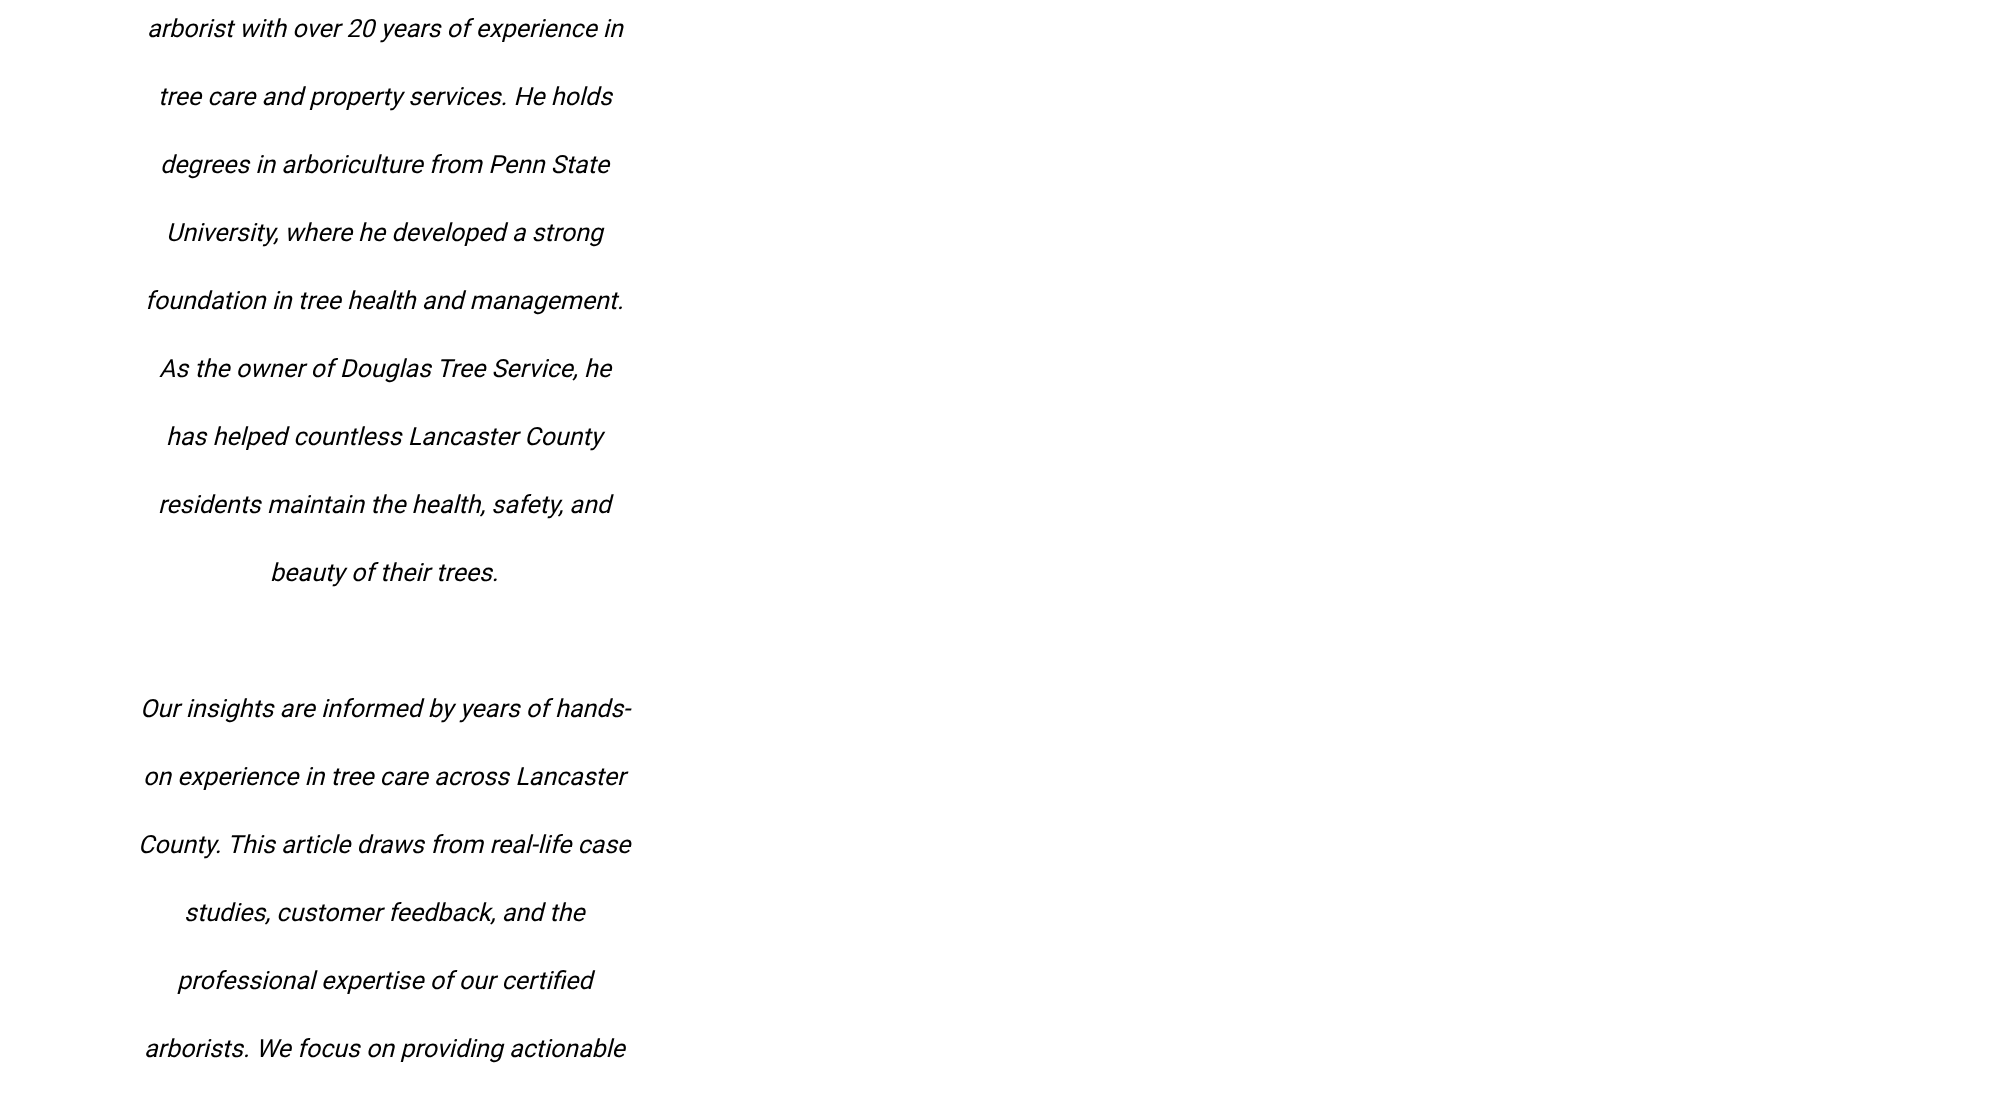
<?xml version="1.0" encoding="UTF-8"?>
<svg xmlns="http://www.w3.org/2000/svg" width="2006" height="1101">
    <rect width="100%" height="100%" fill="#FFFFFF"/>
    <text x="147" y="37" font-family="Roboto" font-size="25" font-style="italic" fill="#000000">arborist with over 20 years of experience in</text>
    <text x="158" y="105" font-family="Roboto" font-size="25" font-style="italic" fill="#000000">tree care and property services. He holds</text>
    <text x="160" y="173" font-family="Roboto" font-size="25" font-style="italic" fill="#000000">degrees in arboriculture from Penn State</text>
    <text x="166" y="241" font-family="Roboto" font-size="25" font-style="italic" fill="#000000">University, where he developed a strong</text>
    <text x="145" y="309" font-family="Roboto" font-size="25" font-style="italic" fill="#000000">foundation in tree health and management.</text>
    <text x="159" y="377" font-family="Roboto" font-size="25" font-style="italic" fill="#000000">As the owner of Douglas Tree Service, he</text>
    <text x="166" y="445" font-family="Roboto" font-size="25" font-style="italic" fill="#000000">has helped countless Lancaster County</text>
    <text x="158" y="513" font-family="Roboto" font-size="25" font-style="italic" fill="#000000">residents maintain the health, safety, and</text>
    <text x="270" y="581" font-family="Roboto" font-size="25" font-style="italic" fill="#000000">beauty of their trees.</text>
    <text x="140" y="717" font-family="Roboto" font-size="25" font-style="italic" fill="#000000">Our insights are informed by years of hands-</text>
    <text x="143" y="785" font-family="Roboto" font-size="25" font-style="italic" fill="#000000">on experience in tree care across Lancaster</text>
    <text x="138" y="853" font-family="Roboto" font-size="25" font-style="italic" fill="#000000">County. This article draws from real-life case</text>
    <text x="184" y="921" font-family="Roboto" font-size="25" font-style="italic" fill="#000000">studies, customer feedback, and the</text>
    <text x="177" y="989" font-family="Roboto" font-size="25" font-style="italic" fill="#000000">professional expertise of our certified</text>
    <text x="144" y="1057" font-family="Roboto" font-size="25" font-style="italic" fill="#000000">arborists. We focus on providing actionable</text>
</svg>
